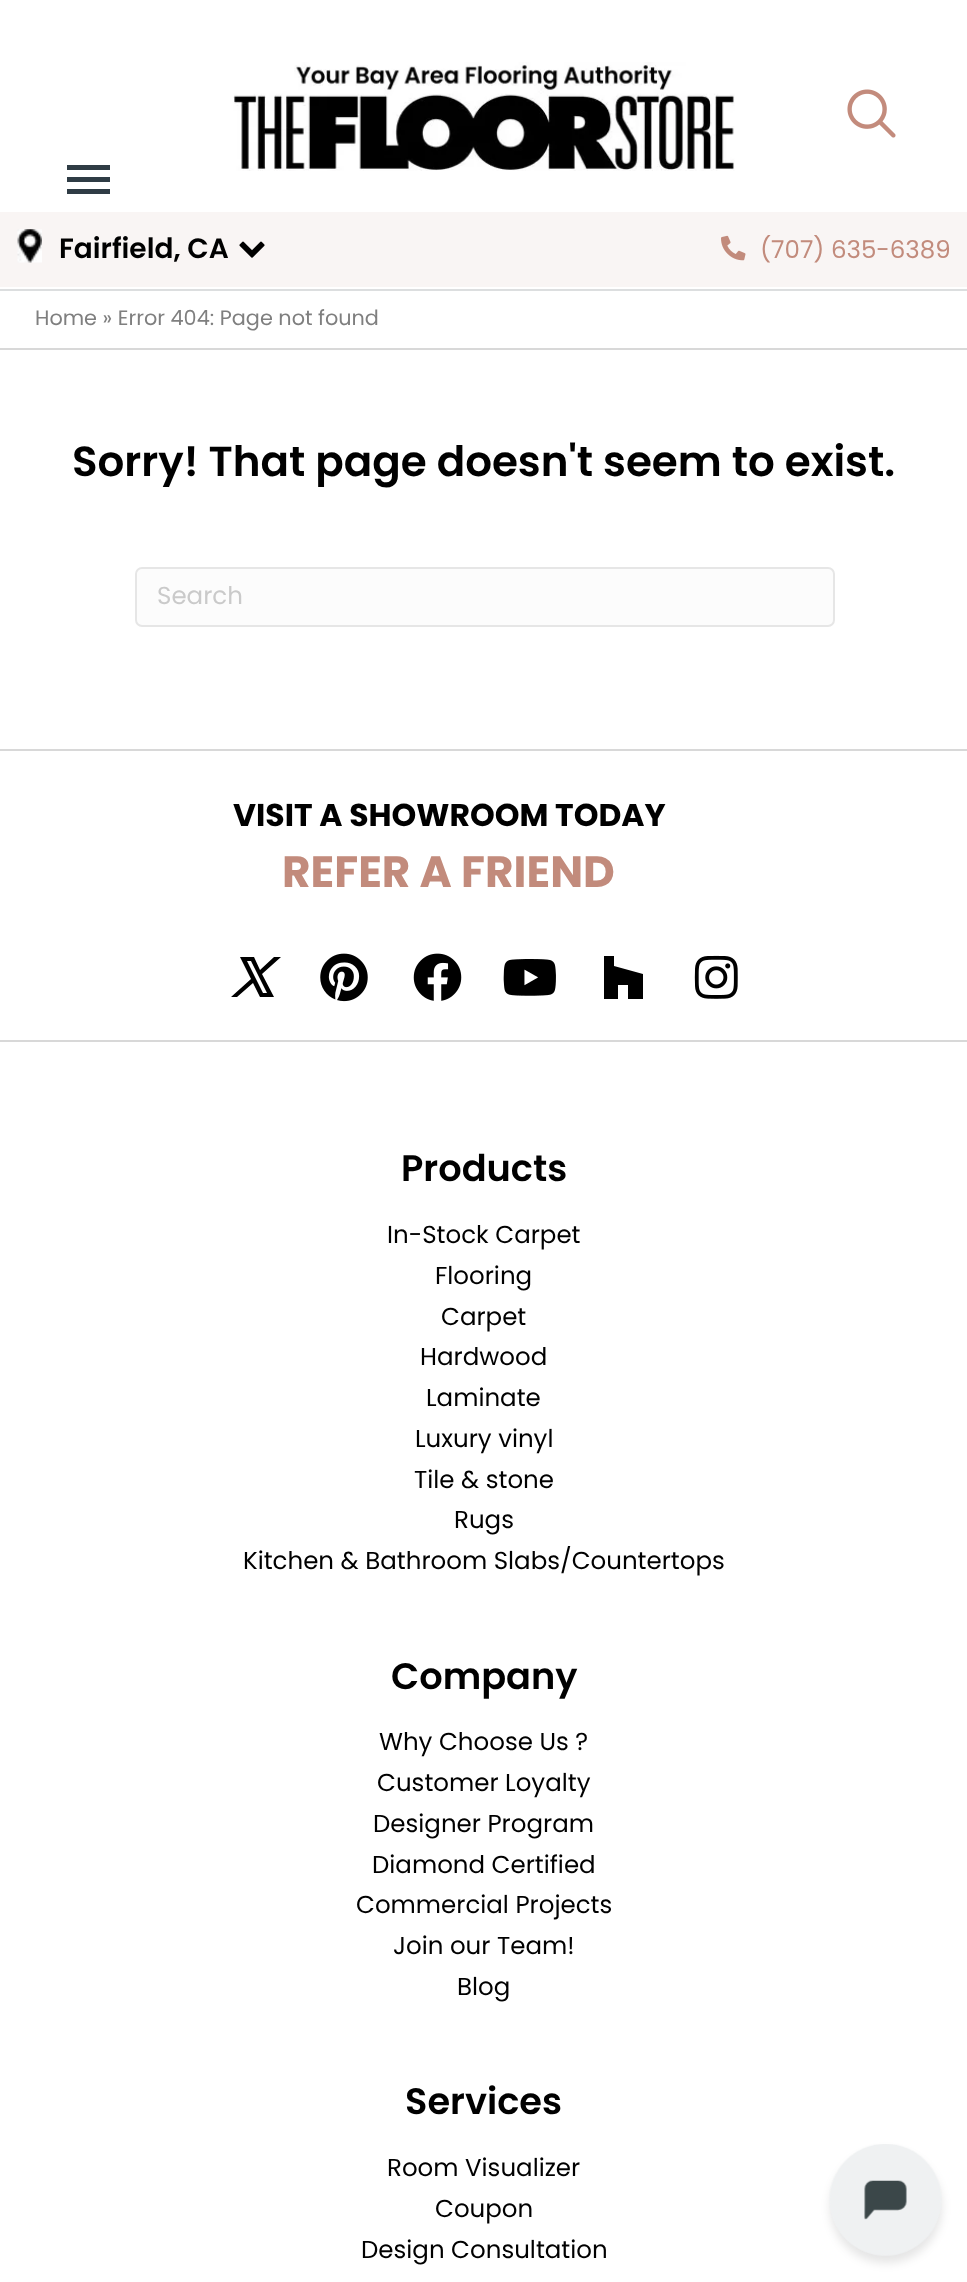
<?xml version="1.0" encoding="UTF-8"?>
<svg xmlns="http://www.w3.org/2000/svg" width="967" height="2282">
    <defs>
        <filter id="blur1" x="-50%" y="-200%" width="200%" height="500%"><feGaussianBlur stdDeviation="5"/></filter>
    </defs>
    <rect width="100%" height="100%" fill="#FFFFFF"/>
    <rect x="67" y="177" width="43" height="5" fill="#2F3C45"/>
    <rect x="67" y="165" width="43" height="5" fill="#2F3C45"/>
    <rect x="67" y="189" width="43" height="5" fill="#2F3C45"/>
    <image x="233" y="62" width="502" height="109" href="img_01.png"/>
    <image x="847" y="89" width="49" height="49" href="img_02.png"/>
    <rect x="0" y="212" width="967" height="75" fill="#F9F5F4"/>
    <image x="17" y="229" width="25" height="34" href="img_03.png"/>
    <text x="59" y="258" font-family="Poppins" font-size="28" font-weight="600" fill="#000000">Fairfield, CA</text>
    <image x="239" y="241" width="26" height="17" href="img_04.png"/>
    <image x="721" y="235" width="25" height="26" href="img_05.png"/>
    <text x="760" y="258" font-family="Poppins" font-size="24.5" fill="#C28B7C">(707) 635-6389</text>
    <rect x="0" y="289" width="967" height="2" fill="#DCDEDF"/>
    <rect x="0" y="348" width="967" height="2" fill="#D8D8D8"/>
    <text x="35" y="325" font-family="Poppins" font-size="20.8" fill="#7F7F7F">Home » Error 404: Page not found</text>
    <text x="72" y="476" font-family="Poppins" font-size="42" font-weight="600" fill="#000000">Sorry! That page doesn't seem to exist.</text>
    <rect x="136" y="568" width="698" height="58" rx="6" fill="#FCFCFC" stroke="#E6E6E6" stroke-width="2"/>
    <text x="157" y="604" font-family="Poppins" font-size="24.5" fill="#CACACA">Search</text>
    <rect x="0" y="749" width="967" height="2" fill="#D8D8D8"/>
    <rect x="0" y="1040" width="967" height="2" fill="#D8D8D8"/>
    <text x="233" y="826" font-family="Poppins" font-size="31.5" font-weight="700" fill="#000000">VISIT A SHOWROOM TODAY</text>
    <text x="282" y="887" font-family="Poppins" font-size="43.75" font-weight="700" fill="#C28B7C">REFER A FRIEND</text>
    <path d="M 274 957 H 281 L 262 974 L 274 997 H 260 L 253 983 L 237 997 H 231 L 251 979 L 240 957 H 254 L 260 970 Z M 263 993 H 267 L 251 961 H 247 Z" fill="#000000"/>
    <image x="320" y="953" width="48" height="49" href="img_06.png"/>
    <image x="413" y="953" width="49" height="48" href="img_07.png"/>
    <image x="503" y="959" width="53" height="37" href="img_08.png"/>
    <path d="M 628 985 H 618 V 999 H 604 V 956 H 614 V 966 L 643 974 V 999 H 628 Z" fill="#000000"/>
    <image x="694" y="955" width="44" height="44" href="img_09.png"/>
    <text x="401" y="1181" font-family="Poppins" font-size="36.75" font-weight="600" fill="#000000">Products</text>
    <text x="387" y="1243" font-family="Poppins" font-size="24.5" fill="#000000">In-Stock Carpet</text>
    <text x="435" y="1284" font-family="Poppins" font-size="24.5" fill="#000000">Flooring</text>
    <text x="441" y="1325" font-family="Poppins" font-size="24.5" fill="#000000">Carpet</text>
    <text x="420" y="1365" font-family="Poppins" font-size="24.5" fill="#000000">Hardwood</text>
    <text x="426" y="1406" font-family="Poppins" font-size="24.5" fill="#000000">Laminate</text>
    <text x="415" y="1447" font-family="Poppins" font-size="24.5" fill="#000000">Luxury vinyl</text>
    <text x="414" y="1488" font-family="Poppins" font-size="24.5" fill="#000000">Tile &amp; stone</text>
    <text x="454" y="1528" font-family="Poppins" font-size="24.5" fill="#000000">Rugs</text>
    <text x="243" y="1569" font-family="Poppins" font-size="24.5" fill="#000000">Kitchen &amp; Bathroom Slabs/Countertops</text>
    <text x="391" y="1689" font-family="Poppins" font-size="36.75" font-weight="600" fill="#000000">Company</text>
    <text x="379" y="1750" font-family="Poppins" font-size="24.5" fill="#000000">Why Choose Us ?</text>
    <text x="377" y="1791" font-family="Poppins" font-size="24.5" fill="#000000">Customer Loyalty</text>
    <text x="373" y="1832" font-family="Poppins" font-size="24.5" fill="#000000">Designer Program</text>
    <text x="372" y="1873" font-family="Poppins" font-size="24.5" fill="#000000">Diamond Certified</text>
    <text x="356" y="1913" font-family="Poppins" font-size="24.5" fill="#000000">Commercial Projects</text>
    <text x="393" y="1954" font-family="Poppins" font-size="24.5" fill="#000000">Join our Team!</text>
    <text x="457" y="1995" font-family="Poppins" font-size="24.5" fill="#000000">Blog</text>
    <text x="405" y="2114" font-family="Poppins" font-size="36.75" font-weight="600" fill="#000000">Services</text>
    <text x="387" y="2176" font-family="Poppins" font-size="24.5" fill="#000000">Room Visualizer</text>
    <text x="435" y="2217" font-family="Poppins" font-size="24.5" fill="#000000">Coupon</text>
    <text x="361" y="2258" font-family="Poppins" font-size="24.5" fill="#000000">Design Consultation</text>
    <rect x="830" y="2151" width="112" height="112" rx="56" fill="#000000" fill-opacity="0.1" filter="url(#blur1)"/>
    <image x="829" y="2144" width="113" height="112" href="img_10.png"/>
</svg>
